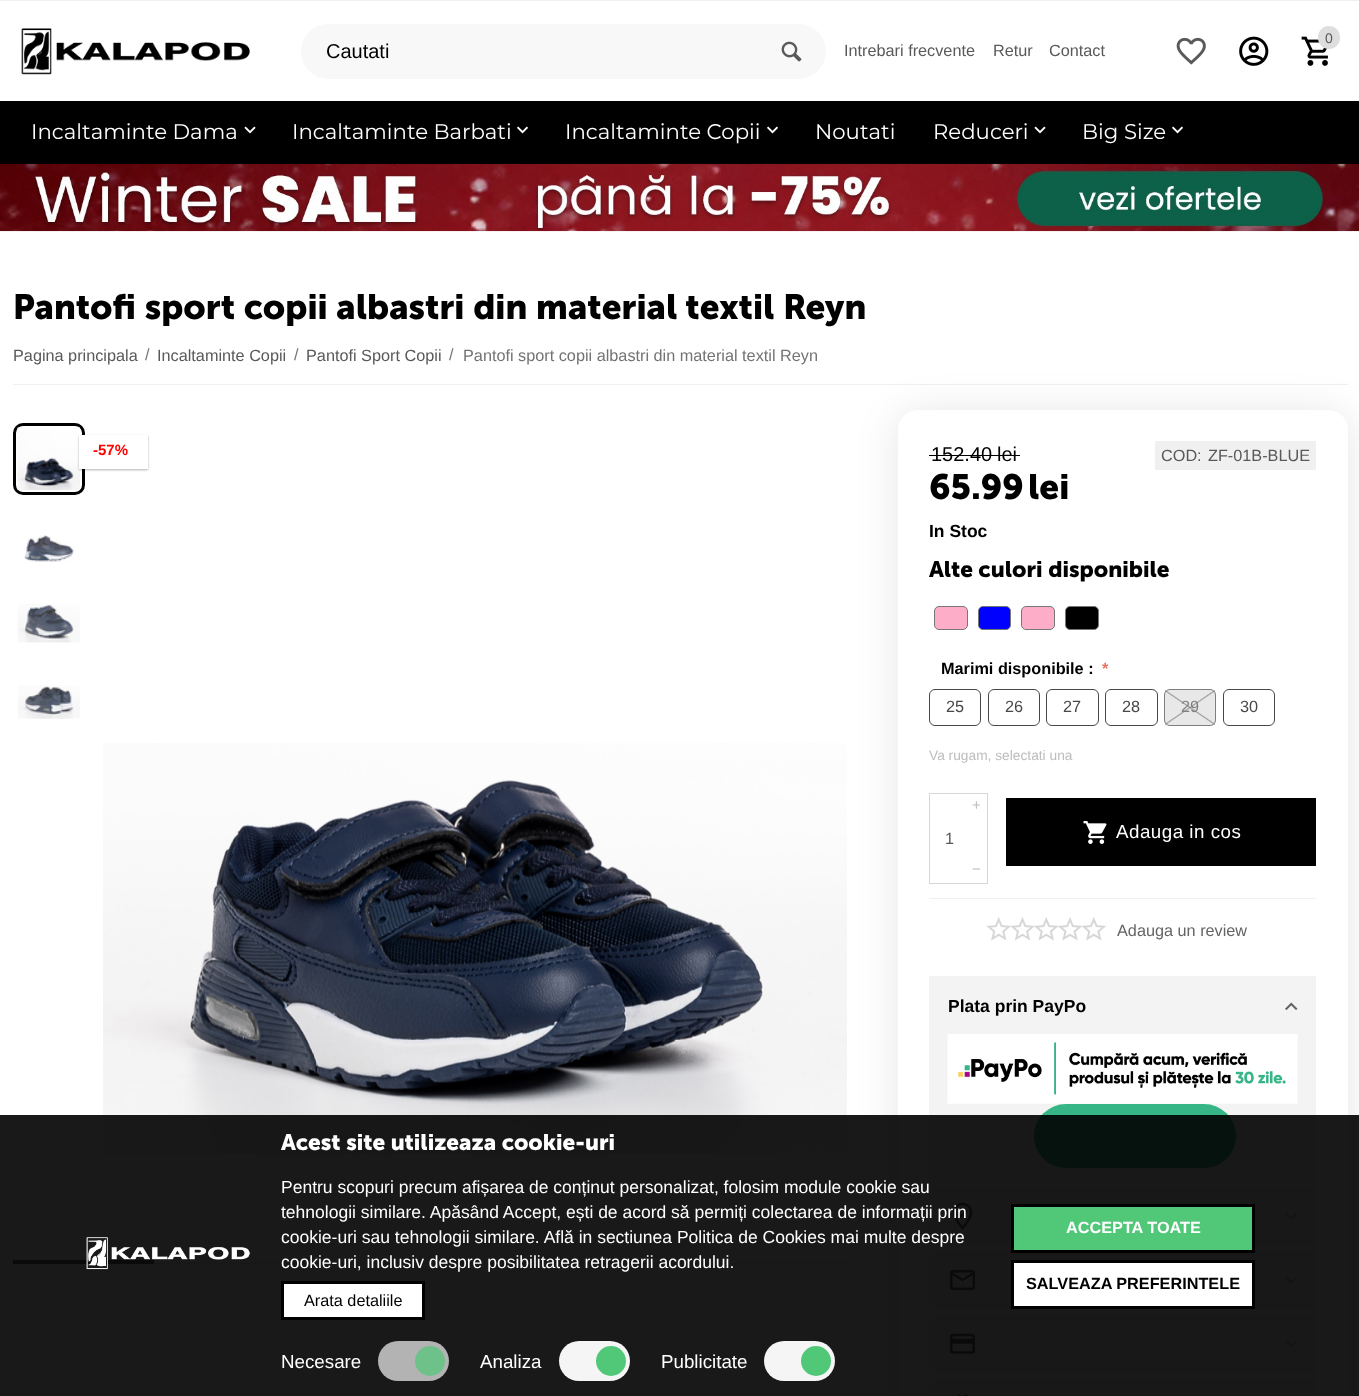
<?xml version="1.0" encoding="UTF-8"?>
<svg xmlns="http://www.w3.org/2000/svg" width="1359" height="1396">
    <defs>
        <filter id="blur1" x="-50%" y="-200%" width="200%" height="500%"><feGaussianBlur stdDeviation="1"/></filter>
        <filter id="blur2" x="-50%" y="-200%" width="200%" height="500%"><feGaussianBlur stdDeviation="20"/></filter>
        <linearGradient id="g1" gradientUnits="userSpaceOnUse" x1="1174" y1="731" x2="1206" y2="684"><stop offset="0" stop-color="#4D4D4D" stop-opacity="0"/><stop offset="0.48" stop-color="#4D4D4D" stop-opacity="0"/><stop offset="0.5" stop-color="#4D4D4D" stop-opacity="0.5"/><stop offset="0.52" stop-color="#4D4D4D" stop-opacity="0"/><stop offset="1" stop-color="#4D4D4D" stop-opacity="0"/></linearGradient>
        <linearGradient id="g2" gradientUnits="userSpaceOnUse" x1="1206" y1="731" x2="1174" y2="684"><stop offset="0" stop-color="#4D4D4D" stop-opacity="0"/><stop offset="0.48" stop-color="#4D4D4D" stop-opacity="0"/><stop offset="0.5" stop-color="#4D4D4D" stop-opacity="0.5"/><stop offset="0.52" stop-color="#4D4D4D" stop-opacity="0"/><stop offset="1" stop-color="#4D4D4D" stop-opacity="0"/></linearGradient>
    </defs>
    <rect width="100%" height="100%" fill="#FFFFFF"/>
    <rect x="0" y="0" width="1359" height="1" fill="#F0F0F0"/>
    <image x="21" y="28" width="229" height="47" href="img_01.png"/>
    <image x="1176" y="37" width="30" height="28" href="img_02.png"/>
    <image x="1239" y="36" width="30" height="30" href="img_03.png"/>
    <image x="1301" y="36" width="27" height="30" href="img_04.png"/>
    <rect x="1318" y="26" width="22" height="23" rx="11" fill="#DEDEDE"/>
    <text x="1325" y="43" font-family="Liberation Sans" font-size="14" fill="#595959">0</text>
    <rect x="301" y="24" width="525" height="55" rx="27.5" fill="#F8F8F8"/>
    <text x="326" y="58" font-family="Liberation Sans" font-size="20" fill="#000000">Cautati</text>
    <image x="781" y="41" width="21" height="21" href="img_05.png"/>
    <text x="844" y="56" font-family="Liberation Sans" font-size="16.25" fill="#595959">Intrebari frecvente</text>
    <text x="993" y="56" font-family="Liberation Sans" font-size="16.25" fill="#595959">Retur</text>
    <text x="1049" y="56" font-family="Liberation Sans" font-size="16.25" fill="#595959">Contact</text>
    <rect x="0" y="101" width="1359" height="63" fill="#000000"/>
    <text x="31" y="139" font-family="Montserrat" font-size="21.25" fill="#FFFFFF">Incaltaminte Dama</text>
    <image x="244" y="126" width="12" height="8" href="img_06.png"/>
    <text x="292" y="139" font-family="Montserrat" font-size="21.25" fill="#FFFFFF">Incaltaminte Barbati</text>
    <image x="517" y="126" width="11" height="8" href="img_07.png"/>
    <text x="565" y="139" font-family="Montserrat" font-size="21.25" fill="#FFFFFF">Incaltaminte Copii</text>
    <image x="767" y="126" width="11" height="8" href="img_07.png"/>
    <text x="815" y="139" font-family="Montserrat" font-size="21.25" fill="#FFFFFF">Noutati</text>
    <text x="933" y="139" font-family="Montserrat" font-size="21.25" fill="#FFFFFF">Reduceri</text>
    <image x="1034" y="126" width="12" height="8" href="img_06.png"/>
    <text x="1082" y="139" font-family="Montserrat" font-size="21.25" fill="#FFFFFF">Big Size</text>
    <image x="1172" y="126" width="11" height="8" href="img_07.png"/>
    <image x="0" y="163" width="1359" height="69" href="img_08.png"/>
    <text x="13" y="319" font-family="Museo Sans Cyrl" font-size="35" font-weight="700" fill="#000000">Pantofi sport copii albastri din material textil Reyn</text>
    <rect x="13" y="384" width="1335" height="1" fill="#F0F0F0"/>
    <text x="13" y="361" font-family="Liberation Sans" font-size="16.25" fill="#595959">Pagina principala</text>
    <text x="145" y="360" font-family="Liberation Sans" font-size="16.25" fill="#737373">/</text>
    <text x="157" y="361" font-family="Liberation Sans" font-size="16.25" fill="#595959">Incaltaminte Copii</text>
    <text x="294" y="360" font-family="Liberation Sans" font-size="16.25" fill="#737373">/</text>
    <text x="306" y="361" font-family="Liberation Sans" font-size="16.25" fill="#595959">Pantofi Sport Copii</text>
    <text x="449" y="360" font-family="Liberation Sans" font-size="16.25" fill="#737373">/</text>
    <text x="463" y="361" font-family="Liberation Sans" font-size="16.25" fill="#737373">Pantofi sport copii albastri din material textil Reyn</text>
    <rect x="14.5" y="424.5" width="69" height="69" rx="8.5" fill="none" stroke="#000000" stroke-width="3"/>
    <image x="17" y="427" width="63" height="63" href="img_09.png"/>
    <image x="24" y="535" width="50" height="27" href="img_10.png"/>
    <image x="17" y="604" width="63" height="39" href="img_11.png"/>
    <image x="18" y="685" width="62" height="34" href="img_12.png"/>
    <rect x="79" y="436" width="69" height="34" fill="#000000" fill-opacity="0.3" filter="url(#blur1)"/>
    <rect x="79" y="435" width="69" height="34" fill="#FFFFFF"/>
    <text x="93" y="455" font-family="Liberation Sans" font-size="15" font-weight="700" fill="#FF0000">-57%</text>
    <image x="103" y="743" width="744" height="412" href="img_13.png"/>
    <rect x="154" y="1263" width="694" height="1" fill="#E3E3E3"/>
    <rect x="13" y="1260" width="141" height="4" fill="#646464"/>
    <rect x="898" y="413" width="450" height="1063" rx="20" fill="#000000" fill-opacity="0.1" filter="url(#blur2)"/>
    <rect x="898" y="410" width="450" height="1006" rx="20" fill="#FFFFFF"/>
    <text x="931" y="461" font-family="Liberation Sans" font-size="20" fill="#000000">152.40</text>
    <text x="997" y="461" font-family="Liberation Sans" font-size="20" fill="#000000">lei</text>
    <rect x="929" y="455" width="91" height="1" fill="#000000"/>
    <text x="929" y="499" font-family="Museo Sans Cyrl" font-size="35" font-weight="700" fill="#000000">65.99</text>
    <text x="1028" y="499" font-family="Museo Sans Cyrl" font-size="35" font-weight="700" fill="#000000">lei</text>
    <rect x="1155" y="441" width="161" height="29" fill="#F0F0F0"/>
    <text x="1161" y="461" font-family="Liberation Sans" font-size="16.25" fill="#595959">COD:</text>
    <text x="1208" y="461" font-family="Liberation Sans" font-size="16.25" fill="#595959">ZF-01B-BLUE</text>
    <text x="929" y="537" font-family="Liberation Sans" font-size="17.5" font-weight="700" fill="#000000">In Stoc</text>
    <text x="929" y="577" font-family="Museo Sans Cyrl" font-size="22.5" font-weight="700" fill="#000000">Alte culori disponibile</text>
    <rect x="934.5" y="606.5" width="33" height="23" rx="4.5" fill="#FDADC8" stroke="#777777"/>
    <rect x="978.5" y="606.5" width="32" height="23" rx="4.5" fill="#0000FF" stroke="#777777"/>
    <rect x="1021.5" y="606.5" width="33" height="23" rx="4.5" fill="#FDADC8" stroke="#777777"/>
    <rect x="1065.5" y="606.5" width="33" height="23" rx="4.5" fill="#000000" stroke="#777777"/>
    <text x="941" y="674" font-family="Liberation Sans" font-size="16.25" font-weight="700" fill="#000000">Marimi disponibile :</text>
    <text x="1102" y="674" font-family="Liberation Sans" font-size="16.25" font-weight="700" fill="#EA7162">*</text>
    <rect x="929.5" y="689.5" width="51" height="36" rx="5.5" fill="none" stroke="#484848"/>
    <text x="946" y="712" font-family="Liberation Sans" font-size="16.25" fill="#484848">25</text>
    <rect x="988.5" y="689.5" width="51" height="36" rx="5.5" fill="none" stroke="#484848"/>
    <text x="1005" y="712" font-family="Liberation Sans" font-size="16.25" fill="#484848">26</text>
    <rect x="1046.5" y="689.5" width="52" height="36" rx="5.5" fill="none" stroke="#484848"/>
    <text x="1063" y="712" font-family="Liberation Sans" font-size="16.25" fill="#484848">27</text>
    <rect x="1105.5" y="689.5" width="52" height="36" rx="5.5" fill="none" stroke="#484848"/>
    <text x="1122" y="712" font-family="Liberation Sans" font-size="16.25" fill="#484848">28</text>
    <rect x="1164" y="689" width="52" height="37" rx="6" fill="#E8E8E8"/>
    <rect x="1165" y="690" width="50" height="35" fill="url(#g1)"/>
    <rect x="1165" y="690" width="50" height="35" fill="url(#g2)"/>
    <rect x="1164.5" y="689.5" width="51" height="36" rx="5.5" fill="none" stroke="#7F7F7F"/>
    <text x="1181" y="712" font-family="Liberation Sans" font-size="16.25" fill="#7F7F7F">29</text>
    <rect x="1223.5" y="689.5" width="51" height="36" rx="5.5" fill="none" stroke="#484848"/>
    <text x="1240" y="712" font-family="Liberation Sans" font-size="16.25" fill="#484848">30</text>
    <text x="929" y="760" font-family="Liberation Sans" font-size="13.75" fill="#BDBDBD">Va rugam, selectati una</text>
    <rect x="929.5" y="793.5" width="58" height="90" fill="none" stroke="#D7D7D7"/>
    <text x="972" y="810" font-family="Liberation Sans" font-size="15" fill="#BDBDBD">+</text>
    <text x="945" y="844" font-family="Liberation Sans" font-size="16.25" fill="#595959">1</text>
    <text x="972" y="874" font-family="Liberation Sans" font-size="15" fill="#BDBDBD">−</text>
    <rect x="1006" y="798" width="310" height="68" fill="#000000"/>
    <image x="1083" y="821" width="24" height="23" href="img_14.png"/>
    <text x="1116" y="838" font-family="Liberation Sans" font-size="18.75" letter-spacing="0.5" fill="#FFFFFF">Adauga in cos</text>
    <rect x="929" y="898" width="387" height="1" fill="#F0F0F0"/>
    <image x="986" y="917" width="25" height="24" href="img_15.png"/>
    <image x="1010" y="917" width="25" height="24" href="img_16.png"/>
    <image x="1034" y="917" width="25" height="24" href="img_17.png"/>
    <image x="1058" y="917" width="24" height="24" href="img_18.png"/>
    <image x="1082" y="917" width="24" height="24" href="img_19.png"/>
    <text x="1117" y="936" font-family="Liberation Sans" font-size="16.25" fill="#646464">Adauga un review</text>
    <rect x="929" y="976" width="387" height="207" fill="#F3F3F3"/>
    <text x="948" y="1012" font-family="Liberation Sans" font-size="17.5" font-weight="700" fill="#000000">Plata prin PayPo</text>
    <image x="1285" y="1002" width="13" height="9" href="img_20.png"/>
    <image x="947" y="1034" width="351" height="70" href="img_21.png"/>
    <rect x="1034" y="1104" width="202" height="64" rx="32" fill="#36B587"/>
    <rect x="929" y="1186" width="387" height="60" fill="#F3F3F3"/>
    <image x="952" y="1202" width="21" height="28" href="img_22.png"/>
    <image x="1285" y="1212" width="13" height="8" href="img_23.png"/>
    <rect x="929" y="1250" width="387" height="60" fill="#F3F3F3"/>
    <image x="950" y="1270" width="25" height="20" href="img_24.png"/>
    <image x="1285" y="1276" width="13" height="8" href="img_25.png"/>
    <rect x="929" y="1314" width="387" height="60" fill="#F3F3F3"/>
    <image x="950" y="1333" width="25" height="21" href="img_26.png"/>
    <image x="1285" y="1340" width="13" height="8" href="img_27.png"/>
    <rect x="929" y="1378" width="387" height="18" fill="#F3F3F3"/>
    <image x="957" y="1394" width="11" height="2" href="img_28.png"/>
    <rect x="0" y="1115" width="1359" height="281" fill="#000000" fill-opacity="0.9"/>
    <image x="86" y="1237" width="164" height="33" href="img_29.png"/>
    <text x="281" y="1150" font-family="Museo Sans Cyrl" font-size="22.5" font-weight="700" fill="#FFFFFF">Acest site utilizeaza cookie-uri</text>
    <text font-family="Liberation Sans" font-size="17.5" fill="#FFFFFF">
        <tspan x="281" y="1193">Pentru scopuri precum afișarea de conținut personalizat, folosim module cookie sau</tspan>
        <tspan x="281" y="1218">tehnologii similare. Apăsând Accept, ești de acord să permiți colectarea de informații prin</tspan>
        <tspan x="281" y="1243">cookie-uri sau tehnologii similare. Află in sectiunea Politica de Cookies mai multe despre</tspan>
        <tspan x="281" y="1268">cookie-uri, inclusiv despre posibilitatea retragerii acordului.</tspan>
    </text>
    <rect x="282.5" y="1282.5" width="141" height="36" fill="#FFFFFF" stroke="#000000" stroke-width="3"/>
    <text x="304" y="1306" font-family="Liberation Sans" font-size="16.25" fill="#000000">Arata detaliile</text>
    <text x="281" y="1368" font-family="Liberation Sans" font-size="18.75" fill="#FFFFFF">Necesare</text>
    <rect x="378" y="1341" width="71" height="40" rx="20" fill="#F5F5F5" fill-opacity="0.7"/>
    <circle cx="430" cy="1361" r="15" fill="#50C878" fill-opacity="0.7"/>
    <text x="480" y="1368" font-family="Liberation Sans" font-size="18.75" fill="#FFFFFF">Analiza</text>
    <rect x="559" y="1341" width="71" height="40" rx="20" fill="#F5F5F5"/>
    <circle cx="611" cy="1361" r="15" fill="#50C878"/>
    <text x="661" y="1368" font-family="Liberation Sans" font-size="18.75" fill="#FFFFFF">Publicitate</text>
    <rect x="764" y="1341" width="71" height="40" rx="20" fill="#F5F5F5"/>
    <circle cx="816" cy="1361" r="15" fill="#50C878"/>
    <rect x="1012.5" y="1205.5" width="241" height="46" fill="#50C878" stroke="#000000" stroke-width="3"/>
    <text x="1066" y="1233" font-family="Liberation Sans" font-size="16.25" font-weight="700" fill="#FFFFFF">ACCEPTA TOATE</text>
    <rect x="1012.5" y="1261.5" width="241" height="46" fill="#FFFFFF" stroke="#000000" stroke-width="3"/>
    <text x="1026" y="1289" font-family="Liberation Sans" font-size="16.25" font-weight="700" fill="#000000">SALVEAZA PREFERINTELE</text>
</svg>
